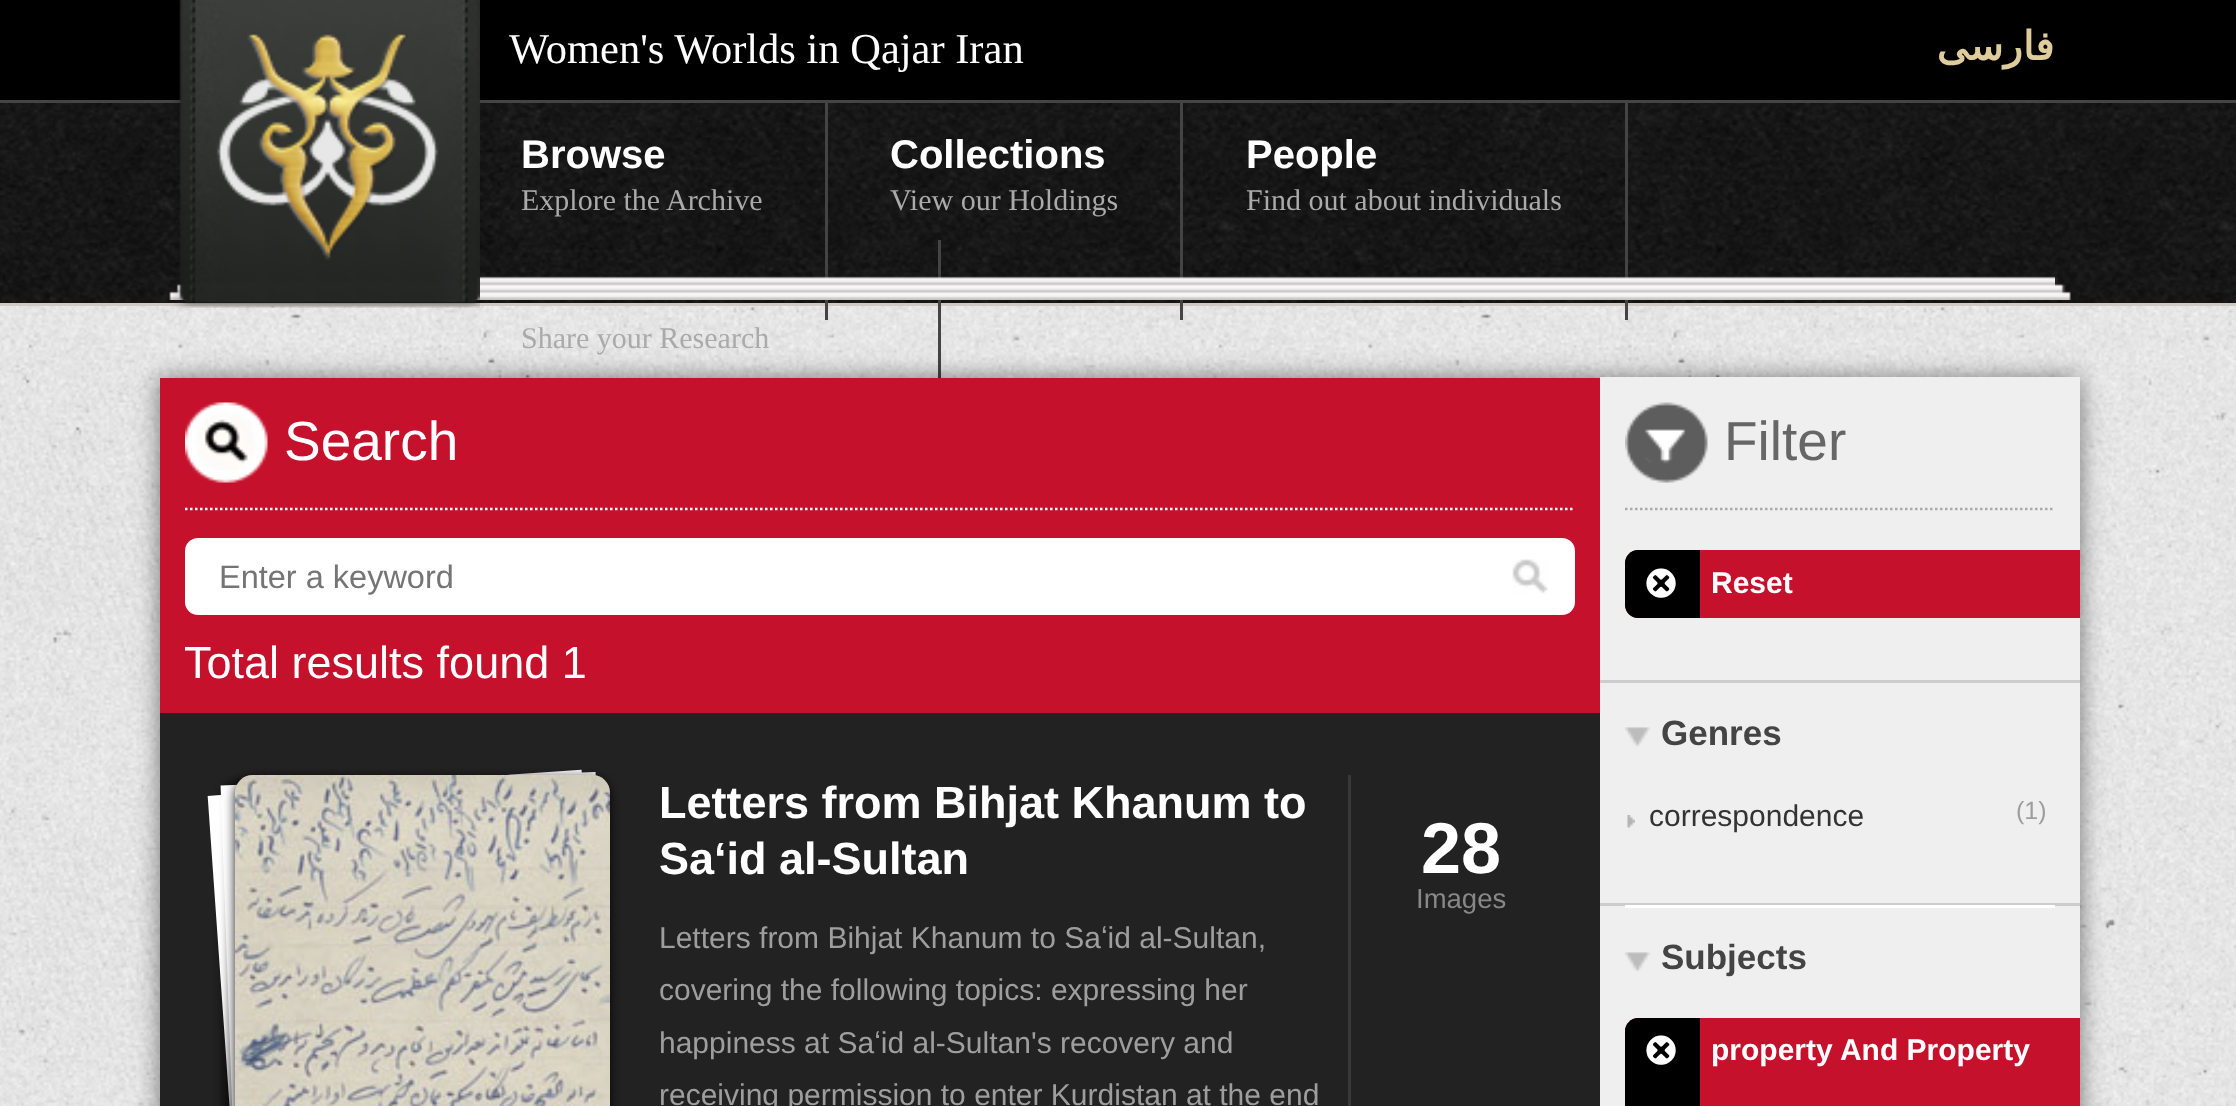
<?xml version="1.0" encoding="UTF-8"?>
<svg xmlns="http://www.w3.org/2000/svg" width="2236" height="1106">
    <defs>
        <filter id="blur1" x="-50%" y="-200%" width="200%" height="500%"><feGaussianBlur stdDeviation="12.5"/></filter>
        <filter id="blur2" x="-50%" y="-200%" width="200%" height="500%"><feGaussianBlur stdDeviation="5"/></filter>
        <filter id="blur3" x="-50%" y="-200%" width="200%" height="500%"><feGaussianBlur stdDeviation="6"/></filter>
    </defs>
    <rect width="100%" height="100%" fill="#FFFFFF"/>
    <image x="0" y="306" width="2236" height="800" href="img_01.png"/>
    <rect x="0" y="0" width="2236" height="100" fill="#000000"/>
    <rect x="0" y="100" width="2236" height="3" fill="#444444"/>
    <image x="0" y="103" width="2236" height="200" href="img_03.png"/>
    <rect x="0" y="303" width="2236" height="3" fill="#CFCAC4"/>
    <rect x="825" y="103" width="3" height="217" fill="#444444"/>
    <rect x="1180" y="103" width="3" height="217" fill="#444444"/>
    <rect x="1625" y="103" width="3" height="217" fill="#444444"/>
    <rect x="938" y="240" width="3" height="138" fill="#444444"/>
    <image x="185" y="274" width="1870" height="26" href="img_04.png"/>
    <image x="167" y="282" width="18" height="18" href="img_05.png"/>
    <image x="173" y="0" width="307" height="308" href="img_02.png"/>
    <text x="509" y="63" font-family="Liberation Serif" font-size="42.5" fill="#FFFFFF">Women's Worlds in Qajar Iran</text>
    <text x="2054" y="60" font-family="DejaVu Sans" font-size="40" font-weight="700" direction="rtl" fill="#DECC9D">فارسی</text>
    <text x="521" y="168" font-family="Liberation Sans" font-size="40" font-weight="700" fill="#FFFFFF">Browse</text>
    <text x="521" y="210" font-family="Liberation Serif" font-size="30" fill="#AAAAAA">Explore the Archive</text>
    <text x="890" y="168" font-family="Liberation Sans" font-size="40" font-weight="700" fill="#FFFFFF">Collections</text>
    <text x="890" y="210" font-family="Liberation Serif" font-size="30" fill="#AAAAAA">View our Holdings</text>
    <text x="1246" y="168" font-family="Liberation Sans" font-size="40" font-weight="700" fill="#FFFFFF">People</text>
    <text x="1246" y="210" font-family="Liberation Serif" font-size="30" fill="#AAAAAA">Find out about individuals</text>
    <text x="521" y="348" font-family="Liberation Serif" font-size="30" fill="#AAAAAA">Share your Research</text>
    <image x="2055" y="277" width="18" height="23" href="img_06.png"/>
    <rect x="160" y="378" width="1920" height="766" fill="#000000" fill-opacity="0.5" filter="url(#blur1)"/>
    <rect x="160" y="713" width="1440" height="393" fill="#222222"/>
    <rect x="1600" y="377" width="480" height="729" fill="#EFEFEF"/>
    <rect x="160" y="378" width="1440" height="335" fill="#C5112C"/>
    <image x="185" y="402" width="83" height="81" href="img_07.png"/>
    <path d="M 185 509 H 1575" fill="none" stroke="#FFFFFF" stroke-width="2.5" stroke-dasharray="2.5 2.5"/>
    <text x="284" y="460" font-family="Liberation Sans" font-size="55" fill="#FFFFFF">Search</text>
    <rect x="185" y="538" width="1390" height="77" rx="13" fill="#FFFFFF"/>
    <text x="219" y="588" font-family="Liberation Sans" font-size="32.5" fill="#757575">Enter a keyword</text>
    <image x="1512" y="559" width="36" height="35" href="img_08.png"/>
    <text x="184" y="678" font-family="Liberation Sans" font-size="45" fill="#FFFFFF">Total results found 1</text>
    <rect x="220" y="785" width="375" height="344" rx="8" fill="#000000" fill-opacity="0.4" filter="url(#blur2)"/>
    <path d="M 221 807.5 L 570 783 L 594.5 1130 L 245.5 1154.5 Z" fill="none" stroke="#FFFFFF" stroke-width="25"/>
    <rect x="228" y="780" width="375" height="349" rx="8" fill="#000000" fill-opacity="0.4" filter="url(#blur2)"/>
    <path d="M 233.5 797.5 L 583.5 785 L 595.5 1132.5 L 246 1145 Z" fill="none" stroke="#FFFFFF" stroke-width="25"/>
    <rect x="235" y="778" width="375" height="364" rx="18" fill="#000000" fill-opacity="0.9" filter="url(#blur3)"/>
    <image x="235" y="775" width="375" height="331" href="img_09.png"/>
    <rect x="1348" y="775" width="3" height="331" fill="#393939"/>
    <text font-family="Liberation Sans" font-size="45" font-weight="700" fill="#FFFFFF">
        <tspan x="659" y="818">Letters from Bihjat Khanum to</tspan>
        <tspan x="659" y="874">Saʻid al-Sultan</tspan>
    </text>
    <text font-family="Liberation Sans" font-size="30" fill="#9E9E9E">
        <tspan x="659" y="948">Letters from Bihjat Khanum to Saʻid al-Sultan,</tspan>
        <tspan x="659" y="1000">covering the following topics: expressing her</tspan>
        <tspan x="659" y="1053">happiness at Saʻid al-Sultan's recovery and</tspan>
        <tspan x="659" y="1105">receiving permission to enter Kurdistan at the end</tspan>
    </text>
    <text x="1421" y="873" font-family="Liberation Sans" font-size="72" font-weight="700" fill="#FFFFFF">28</text>
    <text x="1416" y="908" font-family="Liberation Sans" font-size="27.5" fill="#888888">Images</text>
    <image x="1625" y="402" width="83" height="81" href="img_10.png"/>
    <path d="M 1625 509 H 2055" fill="none" stroke="#AAAAAA" stroke-width="2.5" stroke-dasharray="2.5 2.5"/>
    <text x="1724" y="460" font-family="Liberation Sans" font-size="55" fill="#666666">Filter</text>
    <rect x="1600" y="680" width="480" height="3" fill="#CCCCCC"/>
    <path d="M 1638 550 H 2080 V 618 H 1638 C 1631 618 1625 612 1625 605 V 563 C 1625 556 1631 550 1638 550 Z" fill="#C5112C"/>
    <path d="M 1638 550 H 1700 V 618 H 1638 C 1631 618 1625 612 1625 605 V 563 C 1625 556 1631 550 1638 550 Z" fill="#000000"/>
    <text x="1645" y="593" font-family="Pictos" font-size="35" fill="#FFFFFF">D</text>
    <text x="1711" y="593" font-family="Liberation Sans" font-size="30" font-weight="700" fill="#FFFFFF">Reset</text>
    <image x="1625" y="727" width="26" height="20" href="img_11.png"/>
    <text x="1661" y="745" font-family="Liberation Sans" font-size="35" font-weight="700" fill="#444444">Genres</text>
    <rect x="1600" y="903" width="480" height="3" fill="#CCCCCC"/>
    <image x="1627" y="815" width="8" height="13" href="img_12.png"/>
    <text x="1649" y="826" font-family="Liberation Sans" font-size="30" fill="#333333">correspondence</text>
    <text x="2016" y="819" font-family="Liberation Sans" font-size="25" fill="#9E9E9E">(1)</text>
    <image x="1625" y="952" width="26" height="20" href="img_11.png"/>
    <rect x="1625" y="905" width="430" height="3" fill="#FFFFFF"/>
    <text x="1661" y="969" font-family="Liberation Sans" font-size="35" font-weight="700" fill="#444444">Subjects</text>
    <path d="M 1638 1018 H 2080 V 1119 H 1638 C 1631 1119 1625 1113 1625 1106 V 1031 C 1625 1024 1631 1018 1638 1018 Z" fill="#C5112C"/>
    <path d="M 1638 1018 H 1700 V 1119 H 1638 C 1631 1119 1625 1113 1625 1106 V 1031 C 1625 1024 1631 1018 1638 1018 Z" fill="#000000"/>
    <text x="1645" y="1060" font-family="Pictos" font-size="35" fill="#FFFFFF">D</text>
    <text x="1711" y="1060" font-family="Liberation Sans" font-size="30" font-weight="700" fill="#FFFFFF">property And Property</text>
</svg>
